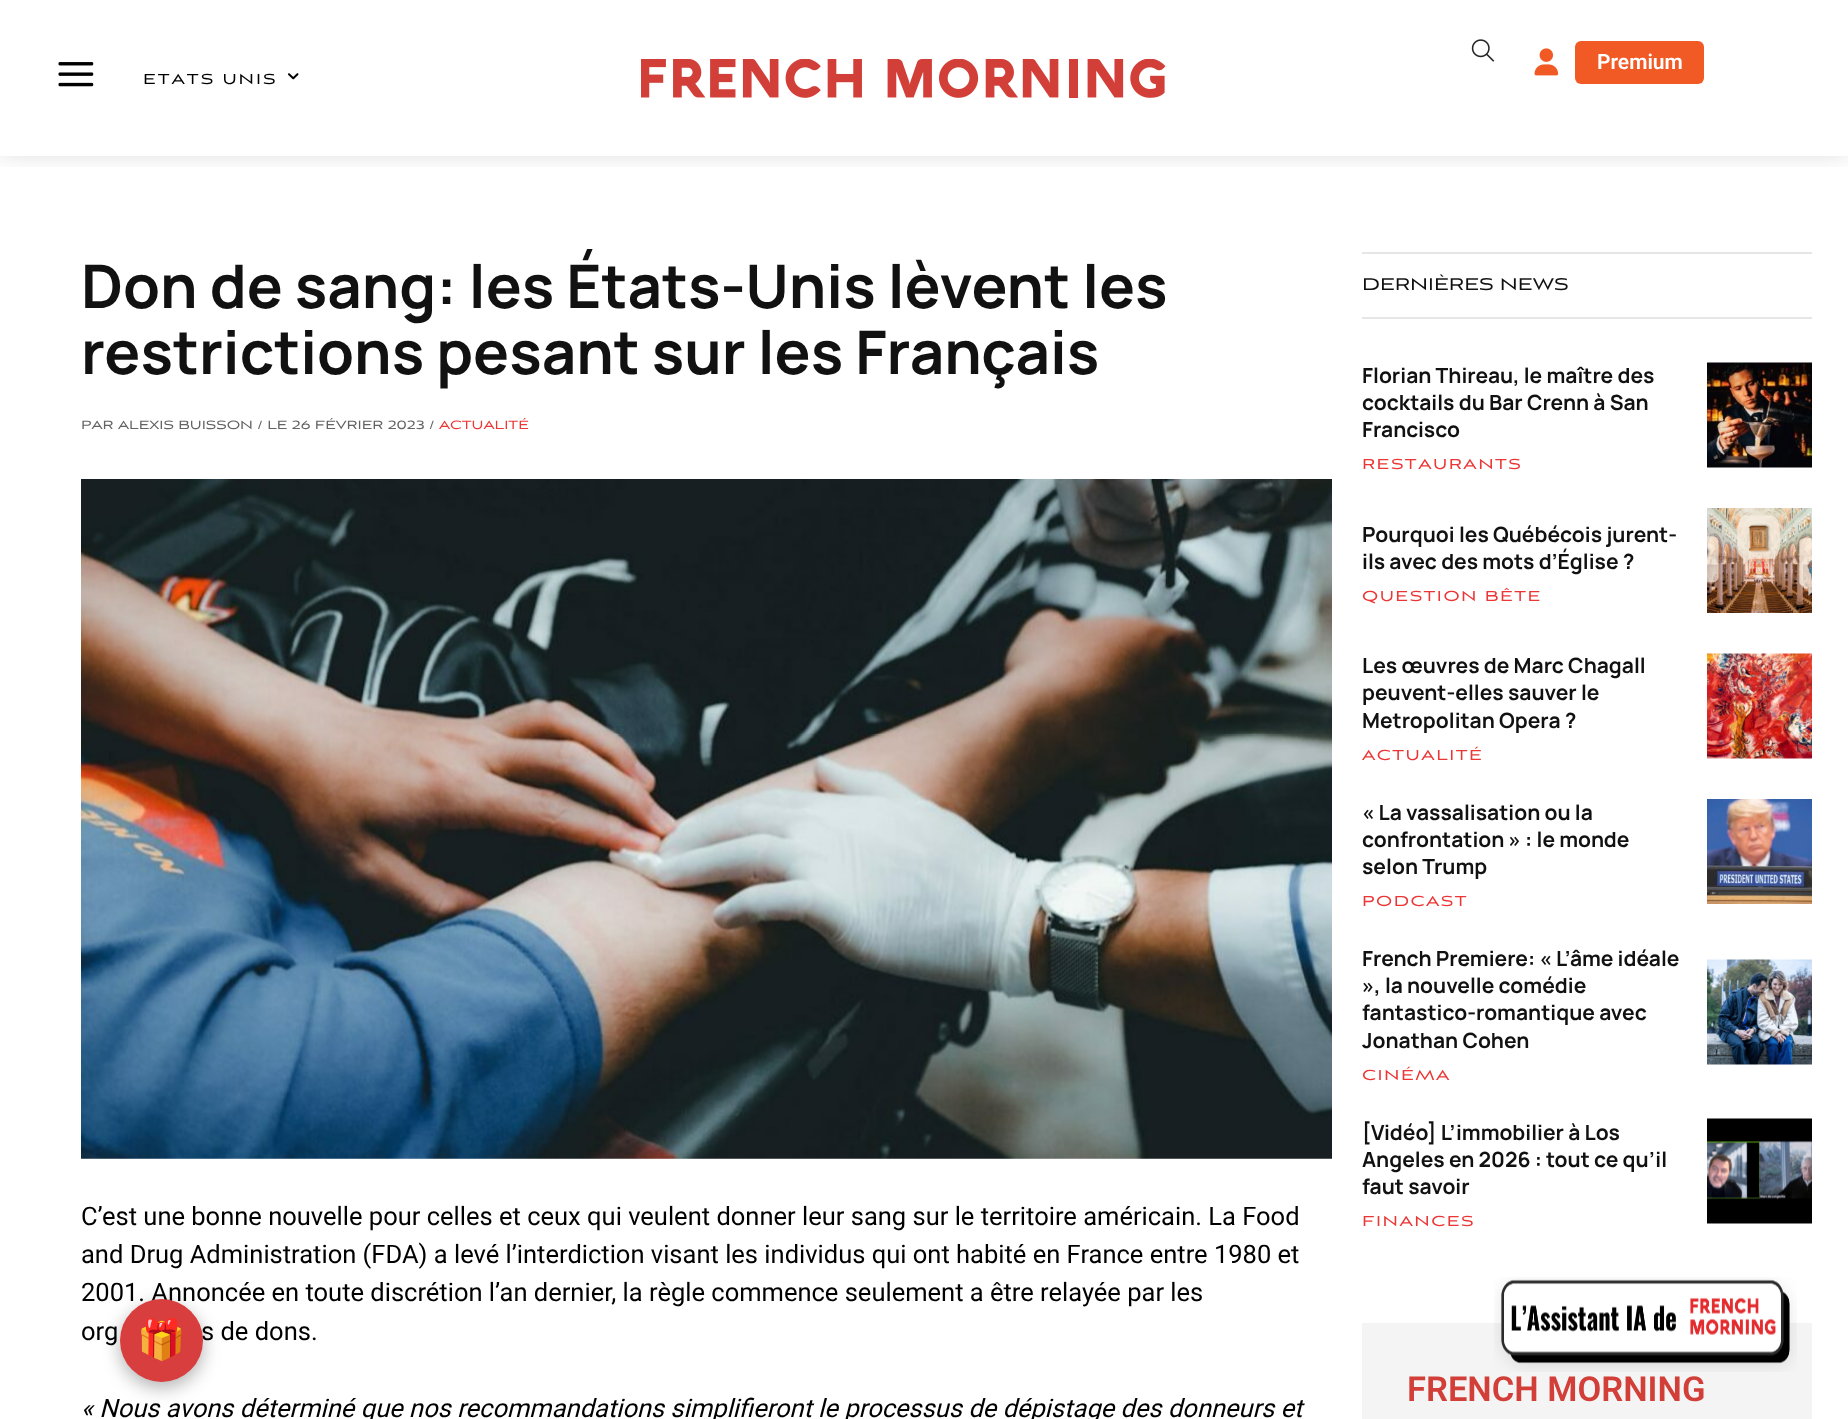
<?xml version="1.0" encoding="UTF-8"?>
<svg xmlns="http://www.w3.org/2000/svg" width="1848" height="1419">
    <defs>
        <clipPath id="clip1"><rect x="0" y="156" width="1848" height="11"/></clipPath>
        <filter id="blur1" x="-50%" y="-200%" width="200%" height="500%"><feGaussianBlur stdDeviation="11"/></filter>
        <filter id="blur2" x="-50%" y="-200%" width="200%" height="500%"><feGaussianBlur stdDeviation="9"/></filter>
    </defs>
    <rect width="100%" height="100%" fill="#FFFFFF"/>
    <image x="58" y="62" width="36" height="25" href="img_01.png"/>
    <image x="641" y="59" width="525" height="39" href="img_03.png"/>
    <image x="1534" y="48" width="25" height="28" href="img_05.png"/>
    <rect x="1575" y="41" width="129" height="43" rx="6" fill="#F15A24"/>
    <g clip-path="url(#clip1)">
        <rect x="0" y="0" width="1848" height="156" fill="#000000" fill-opacity="0.12" filter="url(#blur1)"/>
    </g>
    <text x="143" y="84" font-family="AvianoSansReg" font-size="18" letter-spacing="2" fill="#000000">ETATS UNIS</text>
    <image x="288" y="73" width="11" height="7" href="img_02.png"/>
    <image x="1471" y="39" width="24" height="23" href="img_04.png"/>
    <text x="1597" y="69" font-family="Roboto" font-size="21" font-weight="600" fill="#FFFFFF">Premium</text>
    <text font-family="Manrope" font-size="60" font-weight="700" fill="#111111">
        <tspan x="81" y="308">Don de sang: les États-Unis lèvent les</tspan>
        <tspan x="81" y="374">restrictions pesant sur les Français</tspan>
    </text>
    <text x="81" y="429" font-family="AvianoSansReg" font-size="15" fill="#636363">PAR ALEXIS BUISSON / LE 26 FÉVRIER 2023 /</text>
    <text x="439" y="429" font-family="AvianoSansReg" font-size="15" fill="#EC3535">ACTUALITÉ</text>
    <image x="81" y="479" width="1251" height="680" href="img_06.png"/>
    <text font-family="Roboto" font-size="25.5" fill="#000000">
        <tspan x="81" y="1225">C’est une bonne nouvelle pour celles et ceux qui veulent donner leur sang sur le territoire américain. La Food</tspan>
        <tspan x="81" y="1263">and Drug Administration (FDA) a levé l’interdiction visant les individus qui ont habité en France entre 1980 et</tspan>
        <tspan x="81" y="1301">2001. Annoncée en toute discrétion l’an dernier, la règle commence seulement a être relayée par les</tspan>
        <tspan x="81" y="1340">org</tspan>
    </text>
    <text x="201" y="1340" font-family="Roboto" font-size="25.5" fill="#000000">s de dons.</text>
    <text x="81" y="1417" font-family="Roboto" font-size="25.5" font-style="italic" fill="#000000">« Nous avons déterminé que nos recommandations simplifieront le processus de dépistage des donneurs et</text>
    <rect x="1362" y="252" width="450" height="2" fill="#E6E6E6"/>
    <rect x="1362" y="317" width="450" height="2" fill="#E6E6E6"/>
    <text x="1362" y="290" font-family="AvianoSansReg" font-size="21" fill="#111111">DERNIÈRES NEWS</text>
    <text font-family="Manrope" font-size="21" font-weight="700" fill="#111111">
        <tspan x="1362" y="383">Florian Thireau, le maître des</tspan>
        <tspan x="1362" y="410">cocktails du Bar Crenn à San</tspan>
        <tspan x="1362" y="437">Francisco</tspan>
    </text>
    <text x="1362" y="469" font-family="AvianoSansReg" font-size="18" letter-spacing="1.5" fill="#EC3535">RESTAURANTS</text>
    <image x="1707" y="362" width="105" height="106" href="img_07.png"/>
    <text font-family="Manrope" font-size="21" font-weight="700" fill="#111111">
        <tspan x="1362" y="542">Pourquoi les Québécois jurent-</tspan>
        <tspan x="1362" y="569">ils avec des mots d’Église ?</tspan>
    </text>
    <text x="1362" y="601" font-family="AvianoSansReg" font-size="18" letter-spacing="1.5" fill="#EC3535">QUESTION BÊTE</text>
    <image x="1707" y="508" width="105" height="105" href="img_08.png"/>
    <text font-family="Manrope" font-size="21" font-weight="700" fill="#111111">
        <tspan x="1362" y="673">Les œuvres de Marc Chagall</tspan>
        <tspan x="1362" y="700">peuvent-elles sauver le</tspan>
        <tspan x="1362" y="728">Metropolitan Opera ?</tspan>
    </text>
    <text x="1362" y="760" font-family="AvianoSansReg" font-size="18" letter-spacing="1.5" fill="#EC3535">ACTUALITÉ</text>
    <image x="1707" y="653" width="105" height="106" href="img_09.png"/>
    <text font-family="Manrope" font-size="21" font-weight="700" fill="#111111">
        <tspan x="1362" y="820">« La vassalisation ou la</tspan>
        <tspan x="1362" y="847">confrontation » : le monde</tspan>
        <tspan x="1362" y="874">selon Trump</tspan>
    </text>
    <text x="1362" y="906" font-family="AvianoSansReg" font-size="18" letter-spacing="1.5" fill="#EC3535">PODCAST</text>
    <image x="1707" y="799" width="105" height="105" href="img_10.png"/>
    <text font-family="Manrope" font-size="21" font-weight="700" fill="#111111">
        <tspan x="1362" y="966">French Premiere: « L’âme idéale</tspan>
        <tspan x="1362" y="993">», la nouvelle comédie</tspan>
        <tspan x="1362" y="1020">fantastico-romantique avec</tspan>
        <tspan x="1362" y="1048">Jonathan Cohen</tspan>
    </text>
    <text x="1362" y="1080" font-family="AvianoSansReg" font-size="18" letter-spacing="1.5" fill="#EC3535">CINÉMA</text>
    <image x="1707" y="959" width="105" height="106" href="img_11.png"/>
    <text font-family="Manrope" font-size="21" font-weight="700" fill="#111111">
        <tspan x="1362" y="1140">[Vidéo] L’immobilier à Los</tspan>
        <tspan x="1362" y="1167">Angeles en 2026 : tout ce qu’il</tspan>
        <tspan x="1362" y="1194">faut savoir</tspan>
    </text>
    <text x="1362" y="1226" font-family="AvianoSansReg" font-size="18" letter-spacing="1.5" fill="#EC3535">FINANCES</text>
    <image x="1707" y="1118" width="105" height="106" href="img_12.png"/>
    <rect x="1362" y="1323" width="450" height="96" fill="#F4F4F4"/>
    <text x="1407" y="1401" font-family="Roboto" font-size="34.5" font-weight="600" fill="#D23F39">FRENCH MORNING</text>
    <rect x="120" y="1305" width="83" height="83" rx="41.5" fill="#000000" fill-opacity="0.3" filter="url(#blur2)"/>
    <circle cx="161.5" cy="1340.5" r="41.5" fill="#D83E3E"/>
    <text x="137" y="1353" font-family="Noto Color Emoji" font-size="39" fill="#FFFFFF">🎁</text>
    <image x="1494" y="1277" width="303" height="95" href="img_13.png"/>
</svg>
